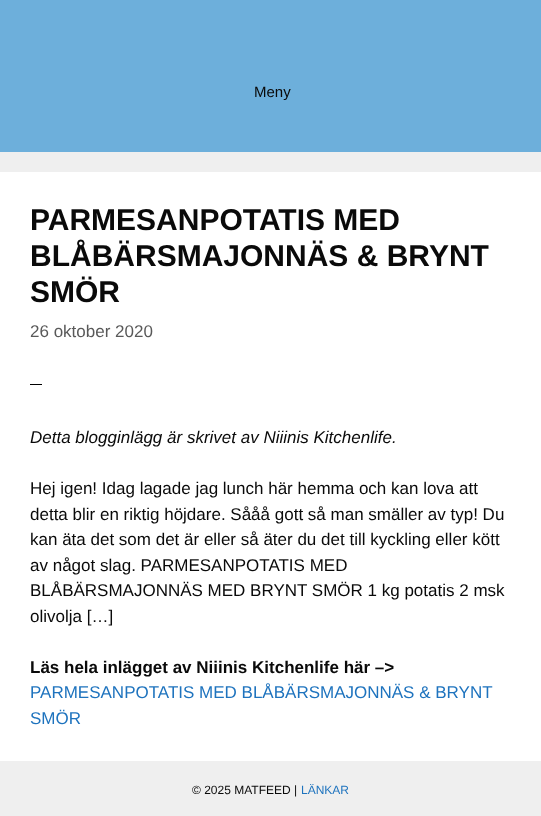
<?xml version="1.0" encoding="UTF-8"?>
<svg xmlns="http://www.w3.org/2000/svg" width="541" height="816">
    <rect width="100%" height="100%" fill="#EFEFEF"/>
    <rect x="0" y="0" width="541" height="152" fill="#6DAFDB"/>
    <text x="254" y="97" font-family="Arimo" font-size="15" fill="#0A0A0A">Meny</text>
    <rect x="0" y="172" width="541" height="589" fill="#FFFFFF"/>
    <text font-family="Arimo" font-size="30" font-weight="700" fill="#0A0A0A">
        <tspan x="30" y="230">PARMESANPOTATIS MED</tspan>
        <tspan x="30" y="266">BLÅBÄRSMAJONNÄS &amp; BRYNT</tspan>
        <tspan x="30" y="302">SMÖR</tspan>
    </text>
    <text x="30" y="337" font-family="Arimo" font-size="17" fill="#595959">26 oktober 2020</text>
    <rect x="30" y="384" width="12" height="1" fill="#000000"/>
    <text x="30" y="443" font-family="Arimo" font-size="17" font-style="italic" fill="#0A0A0A">Detta blogginlägg är skrivet av Niiinis Kitchenlife.</text>
    <text font-family="Arimo" font-size="17" fill="#0A0A0A">
        <tspan x="30" y="494">Hej igen! Idag lagade jag lunch här hemma och kan lova att</tspan>
        <tspan x="30" y="520">detta blir en riktig höjdare. Sååå gott så man smäller av typ! Du</tspan>
        <tspan x="30" y="545">kan äta det som det är eller så äter du det till kyckling eller kött</tspan>
        <tspan x="30" y="571">av något slag. PARMESANPOTATIS MED</tspan>
        <tspan x="30" y="596">BLÅBÄRSMAJONNÄS MED BRYNT SMÖR 1 kg potatis 2 msk</tspan>
        <tspan x="30" y="622">olivolja […]</tspan>
    </text>
    <text x="30" y="673" font-family="Arimo" font-size="17" font-weight="700" fill="#0A0A0A">Läs hela inlägget av Niiinis Kitchenlife här –&gt;</text>
    <text font-family="Arimo" font-size="17" fill="#1E73BE">
        <tspan x="30" y="698">PARMESANPOTATIS MED BLÅBÄRSMAJONNÄS &amp; BRYNT</tspan>
        <tspan x="30" y="724">SMÖR</tspan>
    </text>
    <text x="192" y="794" font-family="Arimo" font-size="12" fill="#0A0A0A">© 2025 MATFEED |</text>
    <text x="301" y="794" font-family="Arimo" font-size="12" fill="#1E73BE">LÄNKAR</text>
</svg>
